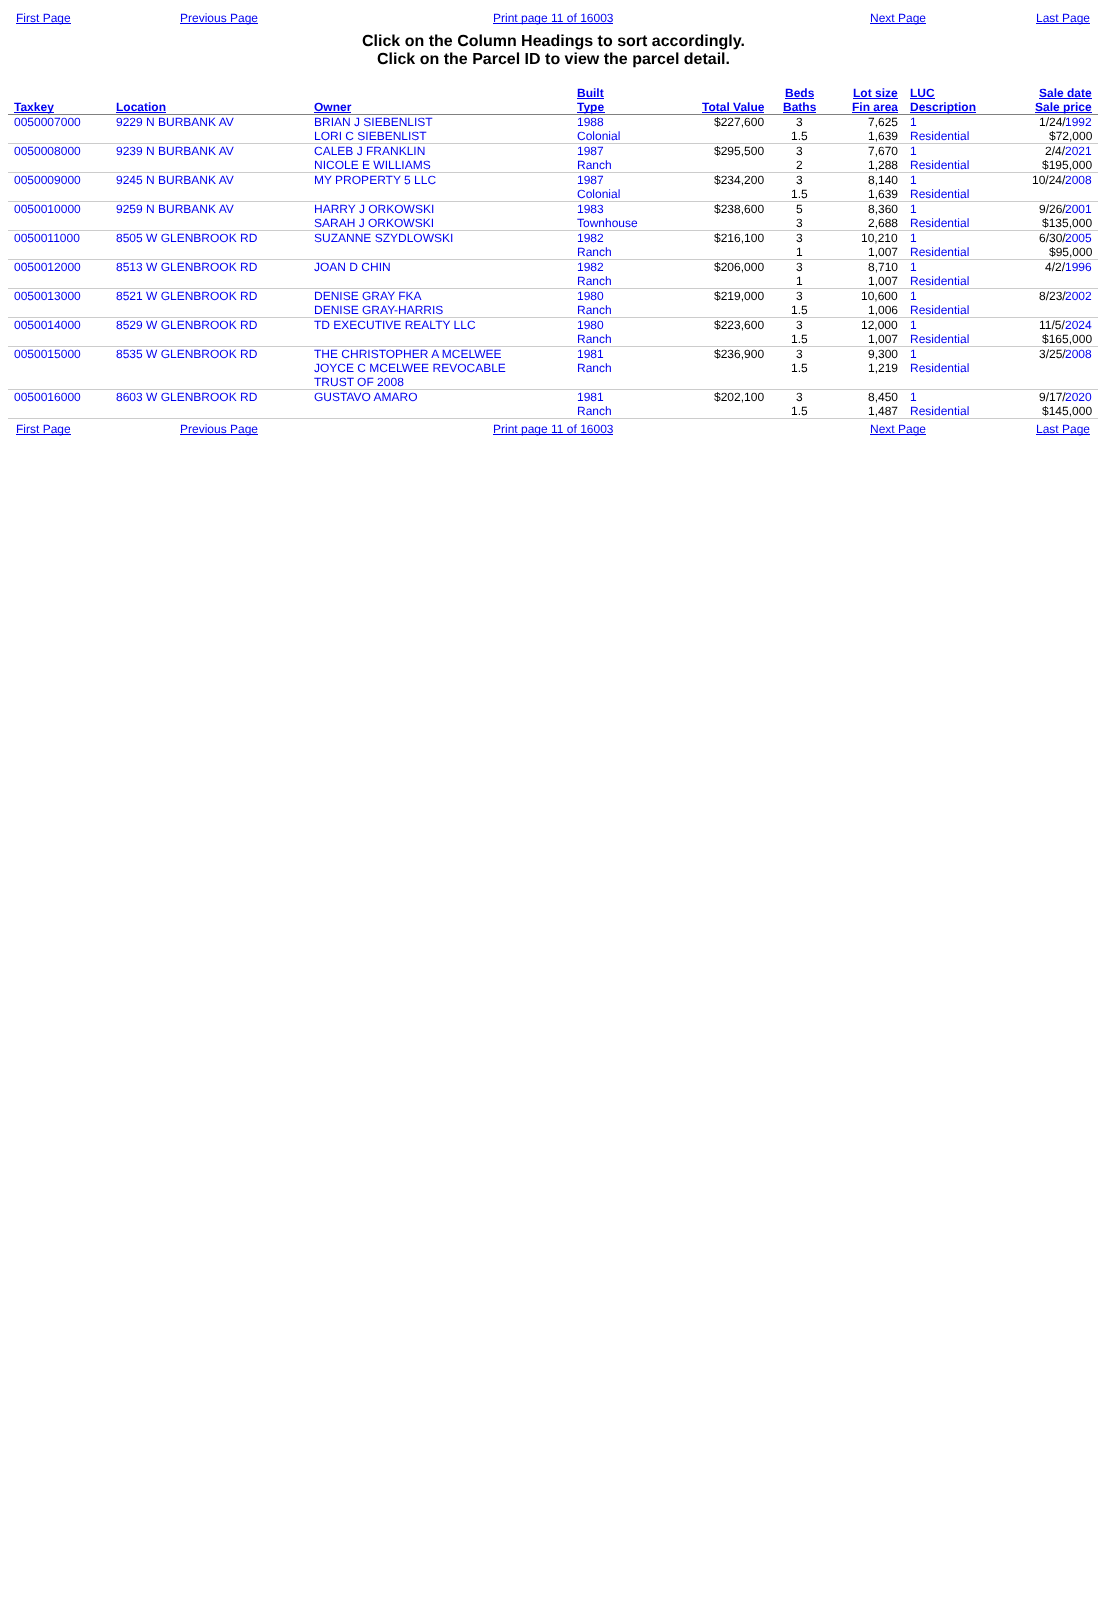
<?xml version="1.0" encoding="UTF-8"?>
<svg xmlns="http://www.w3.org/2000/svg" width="1106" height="1597">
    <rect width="100%" height="100%" fill="#FFFFFF"/>
    <rect x="16" y="23" width="55" height="1" fill="#0000EE"/>
    <text x="16" y="22" font-family="Liberation Sans" font-size="12" fill="#0000EE">First Page</text>
    <rect x="180" y="23" width="78" height="1" fill="#0000EE"/>
    <text x="180" y="22" font-family="Liberation Sans" font-size="12" fill="#0000EE">Previous Page</text>
    <rect x="493" y="23" width="120" height="1" fill="#0000EE"/>
    <text x="493" y="22" font-family="Liberation Sans" font-size="12" fill="#0000EE">Print page 11 of 16003</text>
    <rect x="870" y="23" width="56" height="1" fill="#0000EE"/>
    <text x="870" y="22" font-family="Liberation Sans" font-size="12" fill="#0000EE">Next Page</text>
    <rect x="1036" y="23" width="54" height="1" fill="#0000EE"/>
    <text x="1036" y="22" font-family="Liberation Sans" font-size="12" fill="#0000EE">Last Page</text>
    <text x="362" y="46" font-family="Liberation Sans" font-size="16" font-weight="700" fill="#000000">Click on the Column Headings to sort accordingly.</text>
    <text x="377" y="64" font-family="Liberation Sans" font-size="16" font-weight="700" fill="#000000">Click on the Parcel ID to view the parcel detail.</text>
    <rect x="8" y="114" width="1090" height="1" fill="#808080"/>
    <rect x="14" y="112" width="40" height="1" fill="#0000EE"/>
    <text x="14" y="111" font-family="Liberation Sans" font-size="12" font-weight="700" fill="#0000EE">Taxkey</text>
    <text x="116" y="111" font-family="Liberation Sans" font-size="12" font-weight="700" fill="#0000EE">Location</text>
    <rect x="116" y="112" width="50" height="1" fill="#0000EE"/>
    <text x="314" y="111" font-family="Liberation Sans" font-size="12" font-weight="700" fill="#0000EE">Owner</text>
    <rect x="314" y="112" width="37" height="1" fill="#0000EE"/>
    <text x="577" y="97" font-family="Liberation Sans" font-size="12" font-weight="700" fill="#0000EE">Built</text>
    <rect x="577" y="98" width="27" height="1" fill="#0000EE"/>
    <rect x="577" y="112" width="28" height="1" fill="#0000EE"/>
    <text x="577" y="111" font-family="Liberation Sans" font-size="12" font-weight="700" fill="#0000EE">Type</text>
    <text x="702" y="111" font-family="Liberation Sans" font-size="12" font-weight="700" fill="#0000EE">Total Value</text>
    <rect x="702" y="112" width="62" height="1" fill="#0000EE"/>
    <text x="785" y="97" font-family="Liberation Sans" font-size="12" font-weight="700" fill="#0000EE">Beds</text>
    <rect x="785" y="98" width="29" height="1" fill="#0000EE"/>
    <text x="783" y="111" font-family="Liberation Sans" font-size="12" font-weight="700" fill="#0000EE">Baths</text>
    <rect x="783" y="112" width="33" height="1" fill="#0000EE"/>
    <text x="853" y="97" font-family="Liberation Sans" font-size="12" font-weight="700" fill="#0000EE">Lot size</text>
    <rect x="853" y="98" width="45" height="1" fill="#0000EE"/>
    <text x="852" y="111" font-family="Liberation Sans" font-size="12" font-weight="700" fill="#0000EE">Fin area</text>
    <rect x="852" y="112" width="46" height="1" fill="#0000EE"/>
    <text x="910" y="97" font-family="Liberation Sans" font-size="12" font-weight="700" fill="#0000EE">LUC</text>
    <rect x="910" y="98" width="25" height="1" fill="#0000EE"/>
    <rect x="910" y="112" width="66" height="1" fill="#0000EE"/>
    <text x="910" y="111" font-family="Liberation Sans" font-size="12" font-weight="700" fill="#0000EE">Description</text>
    <text x="1039" y="97" font-family="Liberation Sans" font-size="12" font-weight="700" fill="#0000EE">Sale date</text>
    <rect x="1039" y="98" width="53" height="1" fill="#0000EE"/>
    <rect x="1035" y="112" width="57" height="1" fill="#0000EE"/>
    <text x="1035" y="111" font-family="Liberation Sans" font-size="12" font-weight="700" fill="#0000EE">Sale price</text>
    <rect x="8" y="143" width="1090" height="1" fill="#CCCCCC"/>
    <text x="14" y="126" font-family="Liberation Sans" font-size="12" fill="#0000EE">0050007000</text>
    <text x="116" y="126" font-family="Liberation Sans" font-size="12" fill="#0000EE">9229 N BURBANK AV</text>
    <text font-family="Liberation Sans" font-size="12" fill="#0000EE">
        <tspan x="314" y="126">BRIAN J SIEBENLIST</tspan>
        <tspan x="314" y="140">LORI C SIEBENLIST</tspan>
    </text>
    <text font-family="Liberation Sans" font-size="12" fill="#0000EE">
        <tspan x="577" y="126">1988</tspan>
        <tspan x="577" y="140">Colonial</tspan>
    </text>
    <text x="714" y="126" font-family="Liberation Sans" font-size="12" fill="#000000">$227,600</text>
    <text x="796" y="126" font-family="Liberation Sans" font-size="12" fill="#000000">3</text>
    <text x="791" y="140" font-family="Liberation Sans" font-size="12" fill="#000000">1.5</text>
    <text font-family="Liberation Sans" font-size="12" fill="#000000">
        <tspan x="868" y="126">7,625</tspan>
        <tspan x="868" y="140">1,639</tspan>
    </text>
    <text font-family="Liberation Sans" font-size="12" fill="#0000EE">
        <tspan x="910" y="126">1</tspan>
        <tspan x="910" y="140">Residential</tspan>
    </text>
    <text x="1039" y="126" font-family="Liberation Sans" font-size="12" fill="#000000">1/24/</text>
    <text x="1065" y="126" font-family="Liberation Sans" font-size="12" fill="#0000EE">1992</text>
    <text x="1049" y="140" font-family="Liberation Sans" font-size="12" fill="#000000">$72,000</text>
    <rect x="8" y="172" width="1090" height="1" fill="#CCCCCC"/>
    <text x="14" y="155" font-family="Liberation Sans" font-size="12" fill="#0000EE">0050008000</text>
    <text x="116" y="155" font-family="Liberation Sans" font-size="12" fill="#0000EE">9239 N BURBANK AV</text>
    <text font-family="Liberation Sans" font-size="12" fill="#0000EE">
        <tspan x="314" y="155">CALEB J FRANKLIN</tspan>
        <tspan x="314" y="169">NICOLE E WILLIAMS</tspan>
    </text>
    <text font-family="Liberation Sans" font-size="12" fill="#0000EE">
        <tspan x="577" y="155">1987</tspan>
        <tspan x="577" y="169">Ranch</tspan>
    </text>
    <text x="714" y="155" font-family="Liberation Sans" font-size="12" fill="#000000">$295,500</text>
    <text font-family="Liberation Sans" font-size="12" fill="#000000">
        <tspan x="796" y="155">3</tspan>
        <tspan x="796" y="169">2</tspan>
    </text>
    <text font-family="Liberation Sans" font-size="12" fill="#000000">
        <tspan x="868" y="155">7,670</tspan>
        <tspan x="868" y="169">1,288</tspan>
    </text>
    <text font-family="Liberation Sans" font-size="12" fill="#0000EE">
        <tspan x="910" y="155">1</tspan>
        <tspan x="910" y="169">Residential</tspan>
    </text>
    <text x="1045" y="155" font-family="Liberation Sans" font-size="12" fill="#000000">2/4/</text>
    <text x="1065" y="155" font-family="Liberation Sans" font-size="12" fill="#0000EE">2021</text>
    <text x="1042" y="169" font-family="Liberation Sans" font-size="12" fill="#000000">$195,000</text>
    <rect x="8" y="201" width="1090" height="1" fill="#CCCCCC"/>
    <text x="14" y="184" font-family="Liberation Sans" font-size="12" fill="#0000EE">0050009000</text>
    <text x="116" y="184" font-family="Liberation Sans" font-size="12" fill="#0000EE">9245 N BURBANK AV</text>
    <text x="314" y="184" font-family="Liberation Sans" font-size="12" fill="#0000EE">MY PROPERTY 5 LLC</text>
    <text font-family="Liberation Sans" font-size="12" fill="#0000EE">
        <tspan x="577" y="184">1987</tspan>
        <tspan x="577" y="198">Colonial</tspan>
    </text>
    <text x="714" y="184" font-family="Liberation Sans" font-size="12" fill="#000000">$234,200</text>
    <text x="796" y="184" font-family="Liberation Sans" font-size="12" fill="#000000">3</text>
    <text x="791" y="198" font-family="Liberation Sans" font-size="12" fill="#000000">1.5</text>
    <text font-family="Liberation Sans" font-size="12" fill="#000000">
        <tspan x="868" y="184">8,140</tspan>
        <tspan x="868" y="198">1,639</tspan>
    </text>
    <text font-family="Liberation Sans" font-size="12" fill="#0000EE">
        <tspan x="910" y="184">1</tspan>
        <tspan x="910" y="198">Residential</tspan>
    </text>
    <text x="1032" y="184" font-family="Liberation Sans" font-size="12" fill="#000000">10/24/</text>
    <text x="1065" y="184" font-family="Liberation Sans" font-size="12" fill="#0000EE">2008</text>
    <rect x="8" y="230" width="1090" height="1" fill="#CCCCCC"/>
    <text x="14" y="213" font-family="Liberation Sans" font-size="12" fill="#0000EE">0050010000</text>
    <text x="116" y="213" font-family="Liberation Sans" font-size="12" fill="#0000EE">9259 N BURBANK AV</text>
    <text font-family="Liberation Sans" font-size="12" fill="#0000EE">
        <tspan x="314" y="213">HARRY J ORKOWSKI</tspan>
        <tspan x="314" y="227">SARAH J ORKOWSKI</tspan>
    </text>
    <text font-family="Liberation Sans" font-size="12" fill="#0000EE">
        <tspan x="577" y="213">1983</tspan>
        <tspan x="577" y="227">Townhouse</tspan>
    </text>
    <text x="714" y="213" font-family="Liberation Sans" font-size="12" fill="#000000">$238,600</text>
    <text font-family="Liberation Sans" font-size="12" fill="#000000">
        <tspan x="796" y="213">5</tspan>
        <tspan x="796" y="227">3</tspan>
    </text>
    <text font-family="Liberation Sans" font-size="12" fill="#000000">
        <tspan x="868" y="213">8,360</tspan>
        <tspan x="868" y="227">2,688</tspan>
    </text>
    <text font-family="Liberation Sans" font-size="12" fill="#0000EE">
        <tspan x="910" y="213">1</tspan>
        <tspan x="910" y="227">Residential</tspan>
    </text>
    <text x="1039" y="213" font-family="Liberation Sans" font-size="12" fill="#000000">9/26/</text>
    <text x="1065" y="213" font-family="Liberation Sans" font-size="12" fill="#0000EE">2001</text>
    <text x="1042" y="227" font-family="Liberation Sans" font-size="12" fill="#000000">$135,000</text>
    <rect x="8" y="259" width="1090" height="1" fill="#CCCCCC"/>
    <text x="14" y="242" font-family="Liberation Sans" font-size="12" fill="#0000EE">0050011000</text>
    <text x="116" y="242" font-family="Liberation Sans" font-size="12" fill="#0000EE">8505 W GLENBROOK RD</text>
    <text x="314" y="242" font-family="Liberation Sans" font-size="12" fill="#0000EE">SUZANNE SZYDLOWSKI</text>
    <text font-family="Liberation Sans" font-size="12" fill="#0000EE">
        <tspan x="577" y="242">1982</tspan>
        <tspan x="577" y="256">Ranch</tspan>
    </text>
    <text x="714" y="242" font-family="Liberation Sans" font-size="12" fill="#000000">$216,100</text>
    <text font-family="Liberation Sans" font-size="12" fill="#000000">
        <tspan x="796" y="242">3</tspan>
        <tspan x="796" y="256">1</tspan>
    </text>
    <text x="861" y="242" font-family="Liberation Sans" font-size="12" fill="#000000">10,210</text>
    <text x="868" y="256" font-family="Liberation Sans" font-size="12" fill="#000000">1,007</text>
    <text font-family="Liberation Sans" font-size="12" fill="#0000EE">
        <tspan x="910" y="242">1</tspan>
        <tspan x="910" y="256">Residential</tspan>
    </text>
    <text x="1039" y="242" font-family="Liberation Sans" font-size="12" fill="#000000">6/30/</text>
    <text x="1065" y="242" font-family="Liberation Sans" font-size="12" fill="#0000EE">2005</text>
    <text x="1049" y="256" font-family="Liberation Sans" font-size="12" fill="#000000">$95,000</text>
    <rect x="8" y="288" width="1090" height="1" fill="#CCCCCC"/>
    <text x="14" y="271" font-family="Liberation Sans" font-size="12" fill="#0000EE">0050012000</text>
    <text x="116" y="271" font-family="Liberation Sans" font-size="12" fill="#0000EE">8513 W GLENBROOK RD</text>
    <text x="314" y="271" font-family="Liberation Sans" font-size="12" fill="#0000EE">JOAN D CHIN</text>
    <text font-family="Liberation Sans" font-size="12" fill="#0000EE">
        <tspan x="577" y="271">1982</tspan>
        <tspan x="577" y="285">Ranch</tspan>
    </text>
    <text x="714" y="271" font-family="Liberation Sans" font-size="12" fill="#000000">$206,000</text>
    <text font-family="Liberation Sans" font-size="12" fill="#000000">
        <tspan x="796" y="271">3</tspan>
        <tspan x="796" y="285">1</tspan>
    </text>
    <text font-family="Liberation Sans" font-size="12" fill="#000000">
        <tspan x="868" y="271">8,710</tspan>
        <tspan x="868" y="285">1,007</tspan>
    </text>
    <text font-family="Liberation Sans" font-size="12" fill="#0000EE">
        <tspan x="910" y="271">1</tspan>
        <tspan x="910" y="285">Residential</tspan>
    </text>
    <text x="1045" y="271" font-family="Liberation Sans" font-size="12" fill="#000000">4/2/</text>
    <text x="1065" y="271" font-family="Liberation Sans" font-size="12" fill="#0000EE">1996</text>
    <rect x="8" y="317" width="1090" height="1" fill="#CCCCCC"/>
    <text x="14" y="300" font-family="Liberation Sans" font-size="12" fill="#0000EE">0050013000</text>
    <text x="116" y="300" font-family="Liberation Sans" font-size="12" fill="#0000EE">8521 W GLENBROOK RD</text>
    <text font-family="Liberation Sans" font-size="12" fill="#0000EE">
        <tspan x="314" y="300">DENISE GRAY FKA</tspan>
        <tspan x="314" y="314">DENISE GRAY-HARRIS</tspan>
    </text>
    <text font-family="Liberation Sans" font-size="12" fill="#0000EE">
        <tspan x="577" y="300">1980</tspan>
        <tspan x="577" y="314">Ranch</tspan>
    </text>
    <text x="714" y="300" font-family="Liberation Sans" font-size="12" fill="#000000">$219,000</text>
    <text x="796" y="300" font-family="Liberation Sans" font-size="12" fill="#000000">3</text>
    <text x="791" y="314" font-family="Liberation Sans" font-size="12" fill="#000000">1.5</text>
    <text x="861" y="300" font-family="Liberation Sans" font-size="12" fill="#000000">10,600</text>
    <text x="868" y="314" font-family="Liberation Sans" font-size="12" fill="#000000">1,006</text>
    <text font-family="Liberation Sans" font-size="12" fill="#0000EE">
        <tspan x="910" y="300">1</tspan>
        <tspan x="910" y="314">Residential</tspan>
    </text>
    <text x="1039" y="300" font-family="Liberation Sans" font-size="12" fill="#000000">8/23/</text>
    <text x="1065" y="300" font-family="Liberation Sans" font-size="12" fill="#0000EE">2002</text>
    <rect x="8" y="346" width="1090" height="1" fill="#CCCCCC"/>
    <text x="14" y="329" font-family="Liberation Sans" font-size="12" fill="#0000EE">0050014000</text>
    <text x="116" y="329" font-family="Liberation Sans" font-size="12" fill="#0000EE">8529 W GLENBROOK RD</text>
    <text x="314" y="329" font-family="Liberation Sans" font-size="12" fill="#0000EE">TD EXECUTIVE REALTY LLC</text>
    <text font-family="Liberation Sans" font-size="12" fill="#0000EE">
        <tspan x="577" y="329">1980</tspan>
        <tspan x="577" y="343">Ranch</tspan>
    </text>
    <text x="714" y="329" font-family="Liberation Sans" font-size="12" fill="#000000">$223,600</text>
    <text x="796" y="329" font-family="Liberation Sans" font-size="12" fill="#000000">3</text>
    <text x="791" y="343" font-family="Liberation Sans" font-size="12" fill="#000000">1.5</text>
    <text x="861" y="329" font-family="Liberation Sans" font-size="12" fill="#000000">12,000</text>
    <text x="868" y="343" font-family="Liberation Sans" font-size="12" fill="#000000">1,007</text>
    <text font-family="Liberation Sans" font-size="12" fill="#0000EE">
        <tspan x="910" y="329">1</tspan>
        <tspan x="910" y="343">Residential</tspan>
    </text>
    <text x="1039" y="329" font-family="Liberation Sans" font-size="12" fill="#000000">11/5/</text>
    <text x="1065" y="329" font-family="Liberation Sans" font-size="12" fill="#0000EE">2024</text>
    <text x="1042" y="343" font-family="Liberation Sans" font-size="12" fill="#000000">$165,000</text>
    <rect x="8" y="389" width="1090" height="1" fill="#CCCCCC"/>
    <text x="14" y="358" font-family="Liberation Sans" font-size="12" fill="#0000EE">0050015000</text>
    <text x="116" y="358" font-family="Liberation Sans" font-size="12" fill="#0000EE">8535 W GLENBROOK RD</text>
    <text font-family="Liberation Sans" font-size="12" fill="#0000EE">
        <tspan x="314" y="358">THE CHRISTOPHER A MCELWEE</tspan>
        <tspan x="314" y="372">JOYCE C MCELWEE REVOCABLE</tspan>
        <tspan x="314" y="386">TRUST OF 2008</tspan>
    </text>
    <text font-family="Liberation Sans" font-size="12" fill="#0000EE">
        <tspan x="577" y="358">1981</tspan>
        <tspan x="577" y="372">Ranch</tspan>
    </text>
    <text x="714" y="358" font-family="Liberation Sans" font-size="12" fill="#000000">$236,900</text>
    <text x="796" y="358" font-family="Liberation Sans" font-size="12" fill="#000000">3</text>
    <text x="791" y="372" font-family="Liberation Sans" font-size="12" fill="#000000">1.5</text>
    <text font-family="Liberation Sans" font-size="12" fill="#000000">
        <tspan x="868" y="358">9,300</tspan>
        <tspan x="868" y="372">1,219</tspan>
    </text>
    <text font-family="Liberation Sans" font-size="12" fill="#0000EE">
        <tspan x="910" y="358">1</tspan>
        <tspan x="910" y="372">Residential</tspan>
    </text>
    <text x="1039" y="358" font-family="Liberation Sans" font-size="12" fill="#000000">3/25/</text>
    <text x="1065" y="358" font-family="Liberation Sans" font-size="12" fill="#0000EE">2008</text>
    <rect x="8" y="418" width="1090" height="1" fill="#CCCCCC"/>
    <text x="14" y="401" font-family="Liberation Sans" font-size="12" fill="#0000EE">0050016000</text>
    <text x="116" y="401" font-family="Liberation Sans" font-size="12" fill="#0000EE">8603 W GLENBROOK RD</text>
    <text x="314" y="401" font-family="Liberation Sans" font-size="12" fill="#0000EE">GUSTAVO AMARO</text>
    <text font-family="Liberation Sans" font-size="12" fill="#0000EE">
        <tspan x="577" y="401">1981</tspan>
        <tspan x="577" y="415">Ranch</tspan>
    </text>
    <text x="714" y="401" font-family="Liberation Sans" font-size="12" fill="#000000">$202,100</text>
    <text x="796" y="401" font-family="Liberation Sans" font-size="12" fill="#000000">3</text>
    <text x="791" y="415" font-family="Liberation Sans" font-size="12" fill="#000000">1.5</text>
    <text font-family="Liberation Sans" font-size="12" fill="#000000">
        <tspan x="868" y="401">8,450</tspan>
        <tspan x="868" y="415">1,487</tspan>
    </text>
    <text font-family="Liberation Sans" font-size="12" fill="#0000EE">
        <tspan x="910" y="401">1</tspan>
        <tspan x="910" y="415">Residential</tspan>
    </text>
    <text x="1039" y="401" font-family="Liberation Sans" font-size="12" fill="#000000">9/17/</text>
    <text x="1065" y="401" font-family="Liberation Sans" font-size="12" fill="#0000EE">2020</text>
    <text x="1042" y="415" font-family="Liberation Sans" font-size="12" fill="#000000">$145,000</text>
    <rect x="16" y="434" width="55" height="1" fill="#0000EE"/>
    <text x="16" y="433" font-family="Liberation Sans" font-size="12" fill="#0000EE">First Page</text>
    <rect x="180" y="434" width="78" height="1" fill="#0000EE"/>
    <text x="180" y="433" font-family="Liberation Sans" font-size="12" fill="#0000EE">Previous Page</text>
    <rect x="493" y="434" width="120" height="1" fill="#0000EE"/>
    <text x="493" y="433" font-family="Liberation Sans" font-size="12" fill="#0000EE">Print page 11 of 16003</text>
    <rect x="870" y="434" width="56" height="1" fill="#0000EE"/>
    <text x="870" y="433" font-family="Liberation Sans" font-size="12" fill="#0000EE">Next Page</text>
    <rect x="1036" y="434" width="54" height="1" fill="#0000EE"/>
    <text x="1036" y="433" font-family="Liberation Sans" font-size="12" fill="#0000EE">Last Page</text>
</svg>
